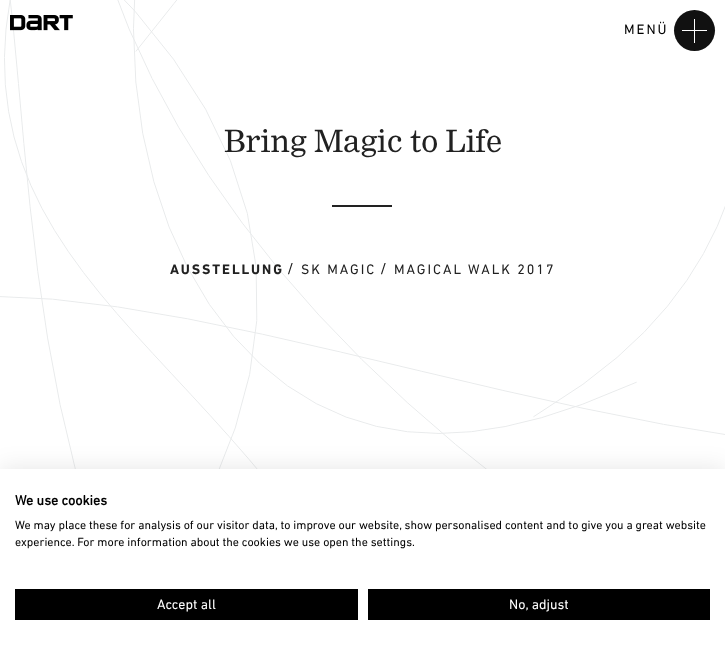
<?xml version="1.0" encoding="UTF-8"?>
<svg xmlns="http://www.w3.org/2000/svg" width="725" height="647">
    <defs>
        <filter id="blur1" x="-50%" y="-200%" width="200%" height="500%"><feGaussianBlur stdDeviation="12"/></filter>
    </defs>
    <rect width="100%" height="100%" fill="#FFFFFF"/>
    <image x="0" y="0" width="725" height="469" href="img_02.png"/>
    <image x="10" y="15" width="63" height="16" href="img_01.png"/>
    <text x="624" y="34" font-family="DIN Next" font-size="14" letter-spacing="2" fill="#000000">MENÜ</text>
    <circle cx="694.5" cy="30.5" r="20.5" fill="#111111"/>
    <rect x="682" y="30" width="25" height="1" fill="#FFFFFF"/>
    <path d="M 695 19 V 43 H 694 V 19 H 695" fill="#FFFFFF"/>
    <text x="224" y="152" font-family="'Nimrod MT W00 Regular'" font-size="30" fill="#212121">Bring Magic to Life</text>
    <rect x="332" y="205" width="60" height="2" fill="#222222"/>
    <text x="170" y="274" font-family="DIN Next" font-size="14" font-weight="700" letter-spacing="2" fill="#212121">AUSSTELLUNG</text>
    <text x="287" y="274" font-family="DIN Next" font-size="16" letter-spacing="2" fill="#212121">/</text>
    <text x="301" y="274" font-family="DIN Next" font-size="14" letter-spacing="2" fill="#212121">SK MAGIC</text>
    <text x="380" y="274" font-family="DIN Next" font-size="16" letter-spacing="2" fill="#212121">/</text>
    <text x="394" y="274" font-family="DIN Next" font-size="14" letter-spacing="2" fill="#212121">MAGICAL WALK 2017</text>
    <rect x="0" y="469" width="725" height="178" fill="#000000" fill-opacity="0.1" filter="url(#blur1)"/>
    <rect x="0" y="469" width="725" height="178" fill="#FFFFFF"/>
    <text x="15" y="505" font-family="'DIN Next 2'" font-size="14" font-weight="700" fill="#000000">We use cookies</text>
    <text font-family="DIN Next" font-size="12" fill="#000000">
        <tspan x="15" y="529">We may place these for analysis of our visitor data, to improve our website, show personalised content and to give you a great website</tspan>
        <tspan x="15" y="546">experience. For more information about the cookies we use open the settings.</tspan>
    </text>
    <rect x="15" y="589" width="343" height="31" fill="#000000"/>
    <text x="157" y="609" font-family="DIN Next" font-size="14" fill="#FFFFFF">Accept all</text>
    <rect x="368" y="589" width="342" height="31" fill="#000000"/>
    <text x="509" y="609" font-family="DIN Next" font-size="14" fill="#FFFFFF">No, adjust</text>
</svg>
